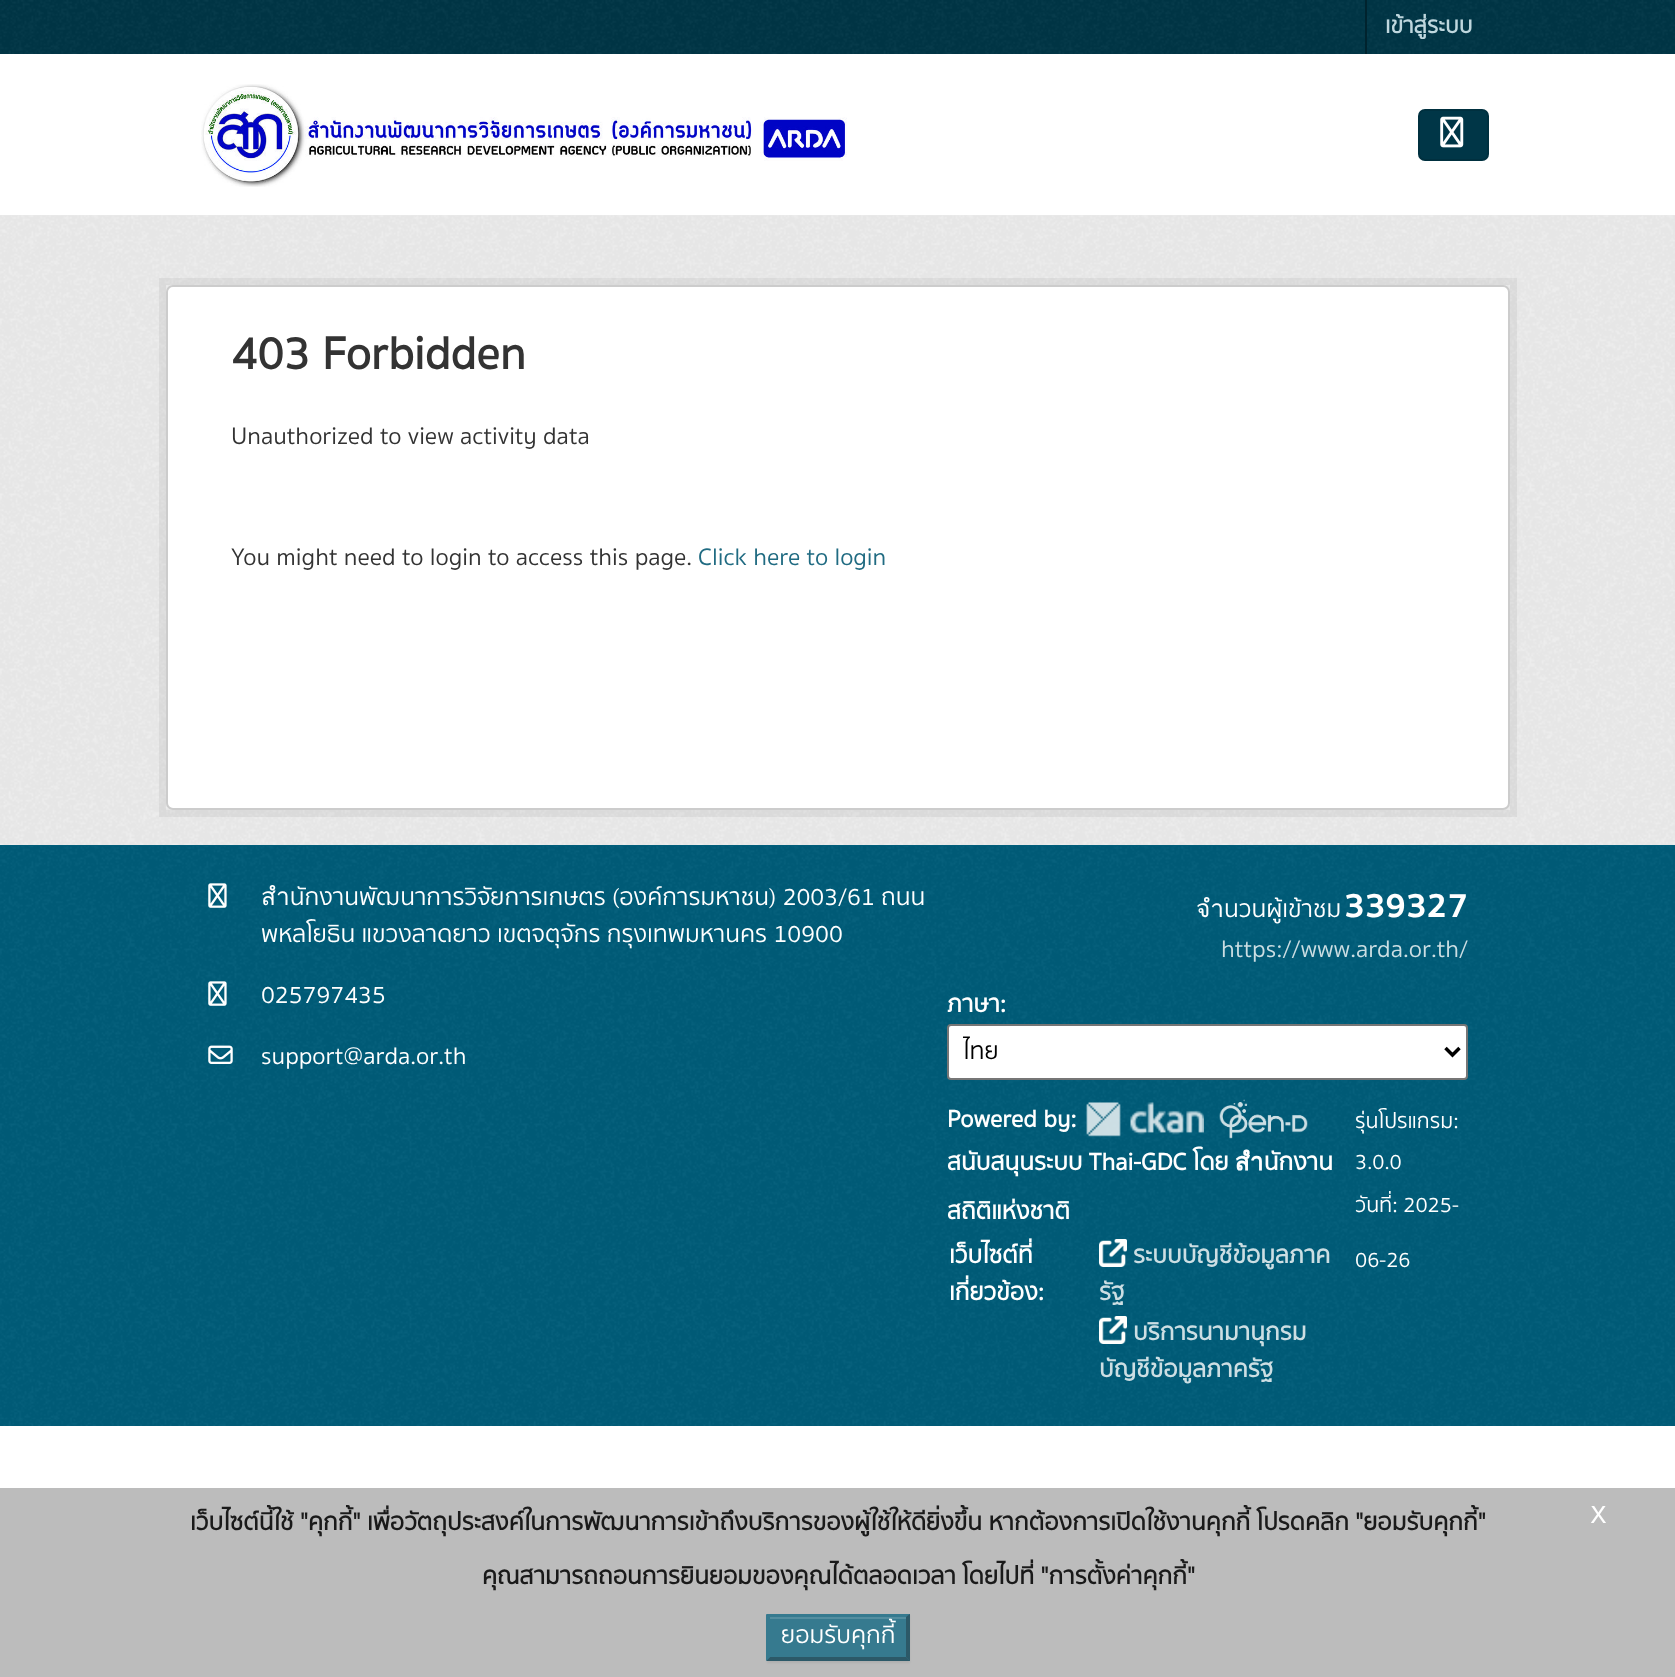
<?xml version="1.0" encoding="UTF-8"?>
<svg xmlns="http://www.w3.org/2000/svg" width="1675" height="1677">
    <defs>
        <clipPath id="clip1"><rect x="963" y="1033" width="469" height="38"/></clipPath>
        <filter id="blur1" x="-50%" y="-200%" width="200%" height="500%"><feGaussianBlur stdDeviation="1"/></filter>
    </defs>
    <rect width="100%" height="100%" fill="#FFFFFF"/>
    <rect x="0" y="0" width="1675" height="54" fill="#003647"/>
    <image x="0" y="0" width="1675" height="54" href="img_01.png"/>
    <rect x="1365" y="0" width="2" height="54" fill="#00232E"/>
    <text x="1385" y="33" font-family="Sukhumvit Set" font-size="23" font-weight="700" fill="#BFD7DE">เข้าสู่ระบบ</text>
    <image x="201" y="84" width="646" height="103" href="img_02.png"/>
    <rect x="1418" y="109" width="71" height="52" rx="7" fill="#003647"/>
    <rect x="1419" y="110" width="69" height="50" rx="6" fill="none" stroke="#000000" stroke-opacity="0.1" stroke-width="2"/>
    <image x="1440" y="116" width="24" height="32" href="img_03.png"/>
    <rect x="0" y="215" width="1675" height="630" fill="#EEEEEE"/>
    <image x="0" y="215" width="1675" height="630" href="img_04.png"/>
    <rect x="162.5" y="281.5" width="1351" height="532" fill="none" stroke="#000000" stroke-opacity="0.05" stroke-width="7"/>
    <rect x="167" y="286" width="1342" height="523" rx="6" fill="#FFFFFF" stroke="#CCCCCC" stroke-width="2"/>
    <text x="231" y="369" font-family="Sukhumvit Set" font-size="46.5" font-weight="700" fill="#333333">403 Forbidden</text>
    <text x="231" y="444" font-family="Sukhumvit Set" font-size="24.5" fill="#333333">Unauthorized to view activity data</text>
    <text x="231" y="565" font-family="Sukhumvit Set" font-size="24.5" fill="#333333">You might need to login to access this page.</text>
    <text x="698" y="565" font-family="Sukhumvit Set" font-size="24.5" fill="#206B82">Click here to login</text>
    <rect x="0" y="845" width="1675" height="581" fill="#005D7A"/>
    <image x="0" y="846" width="1675" height="580" href="img_05.png"/>
    <image x="208" y="883" width="19" height="25" href="img_06.png"/>
    <text font-family="Sukhumvit Set" font-size="24.5" fill="#FFFFFF">
        <tspan x="261" y="905">สำนักงานพัฒนาการวิจัยการเกษตร (องค์การมหาชน) 2003/61 ถนน</tspan>
        <tspan x="261" y="942">พหลโยธิน แขวงลาดยาว เขตจตุจักร กรุงเทพมหานคร 10900</tspan>
    </text>
    <image x="208" y="981" width="19" height="25" href="img_07.png"/>
    <text x="261" y="1003" font-family="Sukhumvit Set" font-size="24.5" fill="#FFFFFF">025797435</text>
    <image x="208" y="1045" width="25" height="19" href="img_08.png"/>
    <text x="261" y="1064" font-family="Sukhumvit Set" font-size="24.5" fill="#FFFFFF">support@arda.or.th</text>
    <text x="1196" y="917" font-family="Sukhumvit Set" font-size="24.5" fill="#FFFFFF">จำนวนผู้เข้าชม</text>
    <text x="1344" y="917" font-family="'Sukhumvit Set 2'" font-size="35" font-weight="700" fill="#FFFFFF">339327</text>
    <text x="1221" y="957" font-family="Sukhumvit Set" font-size="24.5" fill="#CCDEE3">https://www.arda.or.th/</text>
    <text x="947" y="1012" font-family="Sukhumvit Set" font-size="24.5" font-weight="700" fill="#FFFFFF">ภาษา:</text>
    <rect x="948" y="1025" width="519" height="54" rx="3" fill="#FFFFFF" stroke="#767676" stroke-width="2"/>
    <path d="M 1445.5 1048 L 1452.5 1055 L 1459.5 1048" fill="none" stroke="#000000" stroke-width="3.5"/>
    <g clip-path="url(#clip1)">
        <text x="963" y="1059" font-family="Sukhumvit Set" font-size="24.5" fill="#000000">ไทย</text>
    </g>
    <text x="947" y="1127" font-family="Sukhumvit Set" font-size="24.5" font-weight="700" fill="#FFFFFF">Powered by:</text>
    <image x="1086" y="1102" width="118" height="35" href="img_09.png"/>
    <image x="1219" y="1099" width="89" height="40" href="img_10.png"/>
    <text x="947" y="1170" font-family="Sukhumvit Set" font-size="24.5" font-weight="700" fill="#FFFFFF">สนับสนุนระบบ Thai-GDC โดย สำนักงาน</text>
    <text x="947" y="1219" font-family="Sukhumvit Set" font-size="24.5" font-weight="700" fill="#FFFFFF">สถิติแห่งชาติ</text>
    <text font-family="Sukhumvit Set" font-size="24.5" font-weight="700" fill="#FFFFFF">
        <tspan x="949" y="1263">เว็บไซต์ที่</tspan>
        <tspan x="949" y="1300">เกี่ยวข้อง:</tspan>
    </text>
    <image x="1099" y="1239" width="28" height="28" href="img_11.png"/>
    <text x="1133" y="1263" font-family="Sukhumvit Set" font-size="24.5" font-weight="700" fill="#CCDEE3">ระบบบัญชีข้อมูลภาค</text>
    <text x="1099" y="1300" font-family="Sukhumvit Set" font-size="24.5" font-weight="700" fill="#CCDEE3">รัฐ</text>
    <image x="1099" y="1316" width="28" height="28" href="img_12.png"/>
    <text x="1133" y="1340" font-family="Sukhumvit Set" font-size="24.5" font-weight="700" fill="#CCDEE3">บริการนามานุกรม</text>
    <text x="1099" y="1377" font-family="Sukhumvit Set" font-size="24.5" font-weight="700" fill="#CCDEE3">บัญชีข้อมูลภาครัฐ</text>
    <text font-family="Sukhumvit Set" font-size="21.5" fill="#FFFFFF">
        <tspan x="1355" y="1128">รุ่นโปรแกรม:</tspan>
        <tspan x="1355" y="1169">3.0.0</tspan>
    </text>
    <text x="1355" y="1212" font-family="Sukhumvit Set" font-size="21.5" fill="#FFFFFF">วันที่: 2025-</text>
    <text x="1355" y="1267" font-family="Sukhumvit Set" font-size="21.5" fill="#FFFFFF">06-26</text>
    <rect x="0" y="1488" width="1675" height="189" fill="#BCBCBC"/>
    <text x="190" y="1530" font-family="Sukhumvit Set" font-size="24.5" font-weight="700" fill="#1A1A1A">เว็บไซต์นี้ใช้ "คุกกี้" เพื่อวัตถุประสงค์ในการพัฒนาการเข้าถึงบริการของผู้ใช้ให้ดียิ่งขึ้น หากต้องการเปิดใช้งานคุกกี้ โปรดคลิก "ยอมรับคุกกี้"</text>
    <text x="1590" y="1523" font-family="Sukhumvit Set" font-size="35" fill="#FFFFFF">x</text>
    <text x="482" y="1584" font-family="Sukhumvit Set" font-size="24.5" font-weight="700" fill="#1A1A1A">คุณสามารถถอนการยินยอมของคุณได้ตลอดเวลา โดยไปที่ "การตั้งค่าคุกกี้"</text>
    <rect x="767" y="1615" width="143" height="48" fill="#1A1A1A" fill-opacity="0.07" filter="url(#blur1)"/>
    <rect x="767" y="1614" width="143" height="47" fill="#367A8F"/>
    <rect x="770" y="1617" width="137" height="2" fill="#548EA0"/>
    <path d="M 766 1614 H 910 L 906 1617 H 770 Z" fill="#367A8F"/>
    <path d="M 910 1614 V 1661 L 906 1657 V 1617 Z" fill="#2C5968"/>
    <path d="M 910 1661 H 766 L 770 1657 H 906 Z" fill="#2C5968"/>
    <path d="M 766 1661 V 1614 L 770 1617 V 1657 Z" fill="#367A8F"/>
    <text x="781" y="1643" font-family="Sukhumvit Set" font-size="24.5" fill="#FFFFFF">ยอมรับคุกกี้</text>
</svg>
